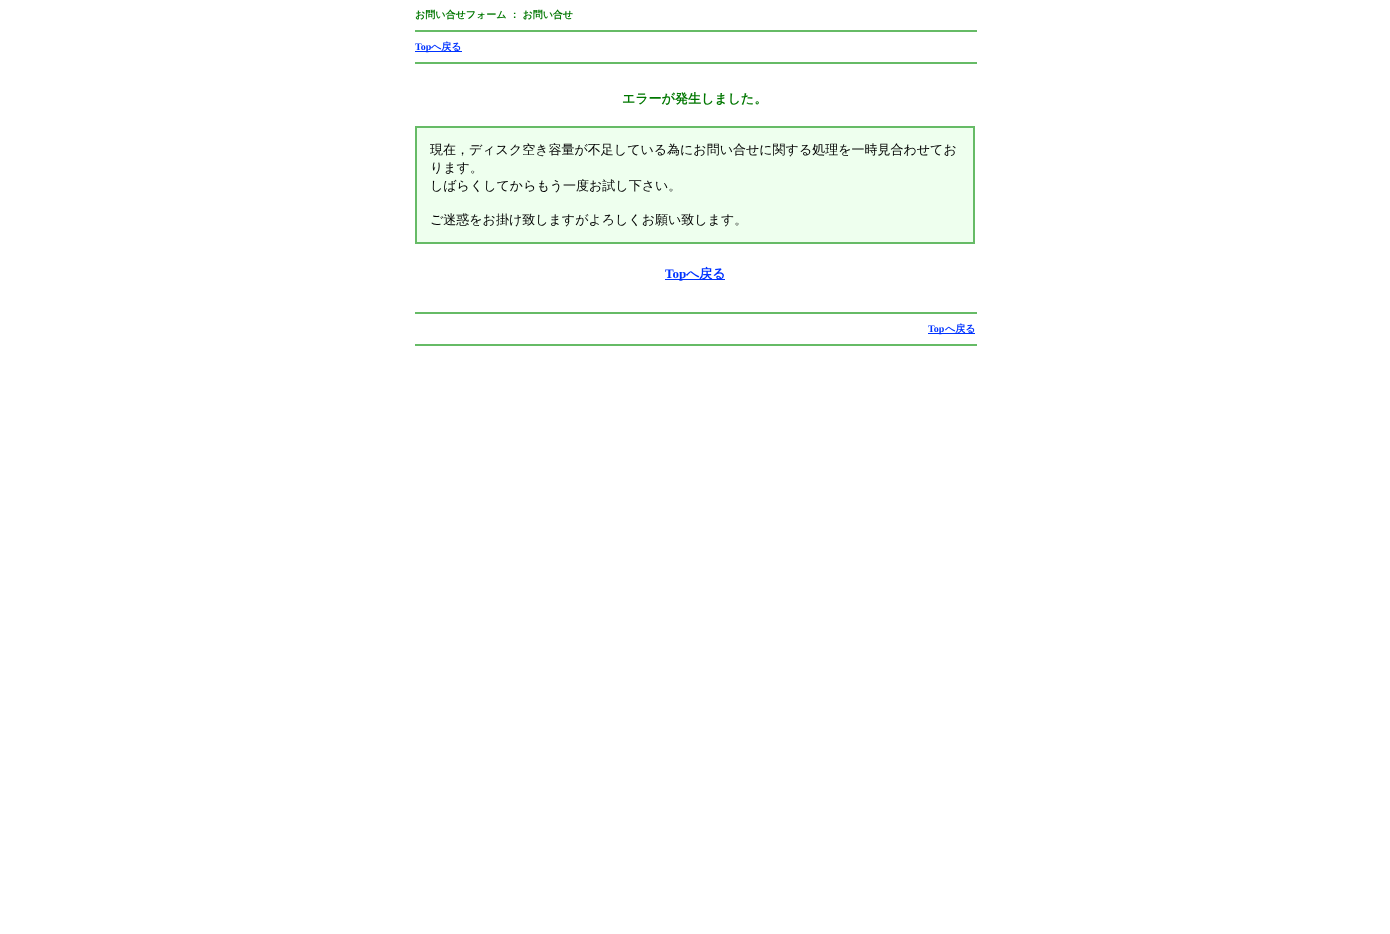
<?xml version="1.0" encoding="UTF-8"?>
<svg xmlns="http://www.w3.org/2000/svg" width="1390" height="934">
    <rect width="100%" height="100%" fill="#FFFFFF"/>
    <text x="415" y="18" font-family="WenQuanYi Zen Hei" font-size="10" font-weight="700" fill="#007700">お問い合せフォーム ： お問い合せ</text>
    <rect x="415" y="30" width="562" height="2" fill="#66BB66"/>
    <rect x="415" y="51" width="47" height="1" fill="#0033FF"/>
    <text x="415" y="50" font-family="Liberation Serif" font-size="10" font-weight="700" fill="#0033FF">Top</text>
    <text x="431" y="50" font-family="WenQuanYi Zen Hei" font-size="10" font-weight="700" fill="#0033FF">へ戻る</text>
    <rect x="415" y="62" width="562" height="2" fill="#66BB66"/>
    <text x="622" y="103" font-family="WenQuanYi Zen Hei" font-size="13" font-weight="700" fill="#007700">エラーが発生しました。</text>
    <rect x="417" y="128" width="556" height="114" fill="#EEFFEE"/>
    <rect x="415.5" y="126.5" width="559" height="117" fill="none" stroke="#66BB66"/>
    <rect x="416.5" y="127.5" width="557" height="115" fill="none" stroke="#66BB66"/>
    <text font-family="WenQuanYi Zen Hei" font-size="13" font-weight="500" fill="#000000">
        <tspan x="430" y="154">現在，ディスク空き容量が不足している為にお問い合せに関する処理を一時見合わせてお</tspan>
        <tspan x="430" y="172">ります。</tspan>
        <tspan x="430" y="190">しばらくしてからもう一度お試し下さい。</tspan>
    </text>
    <text x="430" y="224" font-family="WenQuanYi Zen Hei" font-size="13" font-weight="500" fill="#000000">ご迷惑をお掛け致しますがよろしくお願い致します。</text>
    <rect x="665" y="279" width="60" height="1" fill="#0033FF"/>
    <text x="665" y="278" font-family="Liberation Serif" font-size="13" font-weight="700" fill="#0033FF">Top</text>
    <text x="686" y="278" font-family="WenQuanYi Zen Hei" font-size="13" font-weight="700" fill="#0033FF">へ戻る</text>
    <rect x="415" y="312" width="562" height="2" fill="#66BB66"/>
    <rect x="928" y="333" width="47" height="1" fill="#0033FF"/>
    <text x="928" y="332" font-family="Liberation Serif" font-size="10" font-weight="700" fill="#0033FF">Top</text>
    <text x="945" y="332" font-family="WenQuanYi Zen Hei" font-size="10" font-weight="700" fill="#0033FF">へ戻る</text>
    <rect x="415" y="344" width="562" height="2" fill="#66BB66"/>
</svg>
